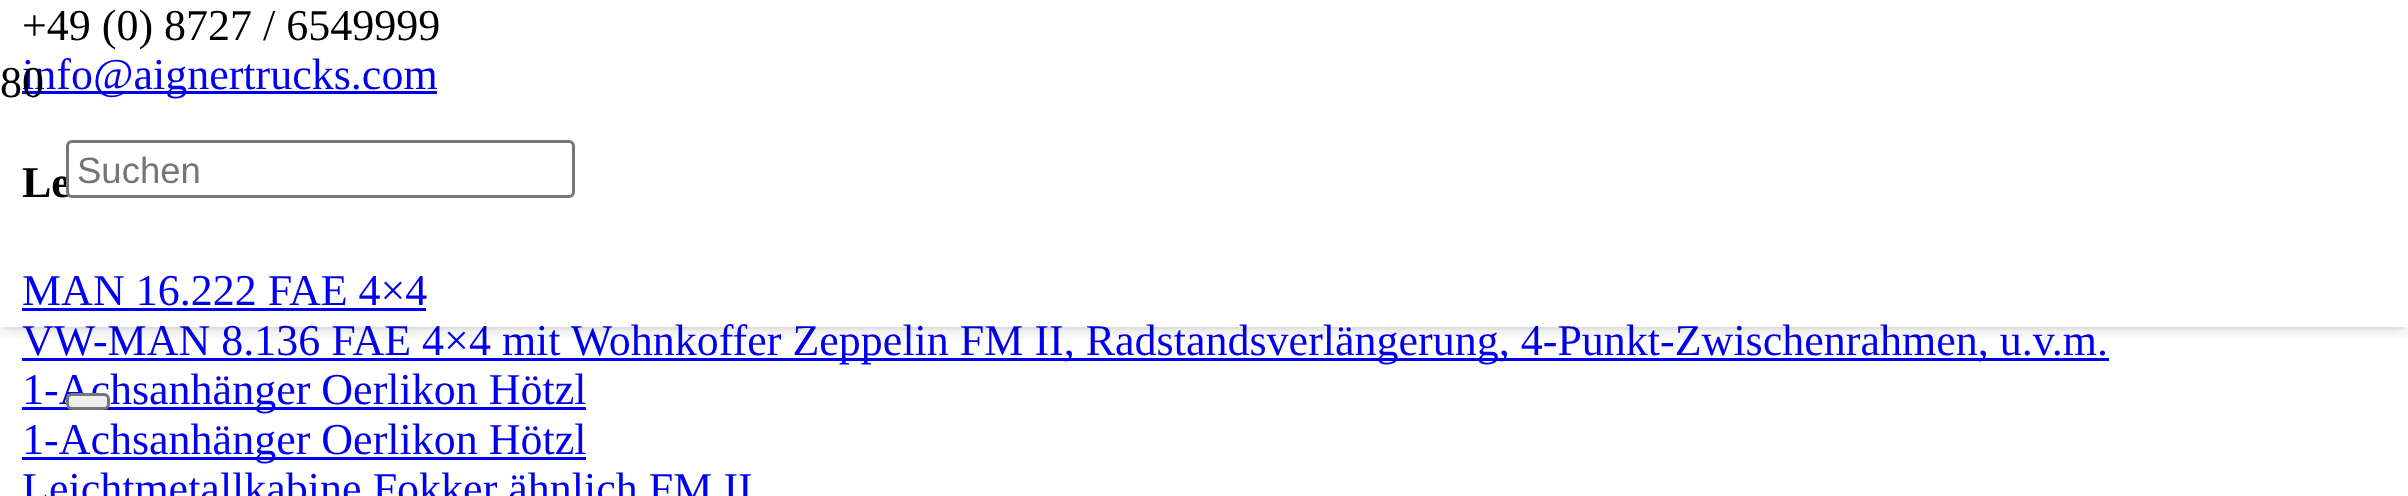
<?xml version="1.0" encoding="UTF-8"?>
<svg xmlns="http://www.w3.org/2000/svg" width="2408" height="496">
    <defs>
        <clipPath id="clip1"><rect x="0" y="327" width="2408" height="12"/></clipPath>
        <filter id="blur1" x="-50%" y="-200%" width="200%" height="500%"><feGaussianBlur stdDeviation="7"/></filter>
        <clipPath id="clip2"><rect x="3" y="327" width="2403" height="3"/></clipPath>
        <filter id="blur2" x="-50%" y="-200%" width="200%" height="500%"><feGaussianBlur stdDeviation="1.5"/></filter>
    </defs>
    <rect width="100%" height="100%" fill="#FFFFFF"/>
    <text x="22" y="40" font-family="Liberation Serif" font-size="44" fill="#000000">+49 (0) 8727 / 6549999</text>
    <rect x="22" y="91" width="415" height="3" fill="#0000EE"/>
    <text x="22" y="89" font-family="Liberation Serif" font-size="44" fill="#0000EE">info@aignertrucks.com</text>
    <text x="22" y="197" font-family="Liberation Serif" font-size="44" font-weight="700" fill="#000000">Le</text>
    <text x="22" y="305" font-family="Liberation Serif" font-size="44" fill="#0000EE">MAN 16.222 FAE 4×4</text>
    <rect x="22" y="308" width="404" height="3" fill="#0000EE"/>
    <rect x="22" y="358" width="2087" height="3" fill="#0000EE"/>
    <text x="22" y="355" font-family="Liberation Serif" font-size="44" fill="#0000EE">VW-MAN 8.136 FAE 4×4 mit Wohnkoffer Zeppelin FM II, Radstandsverlängerung, 4-Punkt-Zwischenrahmen, u.v.m.</text>
    <rect x="22" y="407" width="564" height="3" fill="#0000EE"/>
    <text x="22" y="404" font-family="Liberation Serif" font-size="44" fill="#0000EE">1-Achsanhänger Oerlikon Hötzl</text>
    <rect x="22" y="457" width="564" height="3" fill="#0000EE"/>
    <text font-family="Liberation Serif" font-size="44" fill="#0000EE">
        <tspan x="22" y="454">1-Achsanhänger Oerlikon Hötzl</tspan>
        <tspan x="22" y="503">Leichtmetallkabine Fokker ähnlich FM II</tspan>
    </text>
    <g clip-path="url(#clip1)">
        <rect x="3" y="118" width="2403" height="215" fill="#000000" fill-opacity="0.1" filter="url(#blur1)"/>
    </g>
    <text x="0" y="97" font-family="Liberation Serif" font-size="44" fill="#000000">80</text>
    <g clip-path="url(#clip2)">
        <rect x="3" y="116" width="2403" height="214" fill="#000000" fill-opacity="0.05" filter="url(#blur2)"/>
    </g>
    <rect x="67.5" y="141.5" width="506" height="55" rx="4.5" fill="#FFFFFF" stroke="#767676" stroke-width="3"/>
    <text x="77" y="183" font-family="Liberation Sans" font-size="36.5" fill="#757575">Suchen</text>
    <rect x="67.5" y="394.5" width="41" height="14" rx="4.5" fill="#EFEFEF" stroke="#767676" stroke-width="3"/>
</svg>
